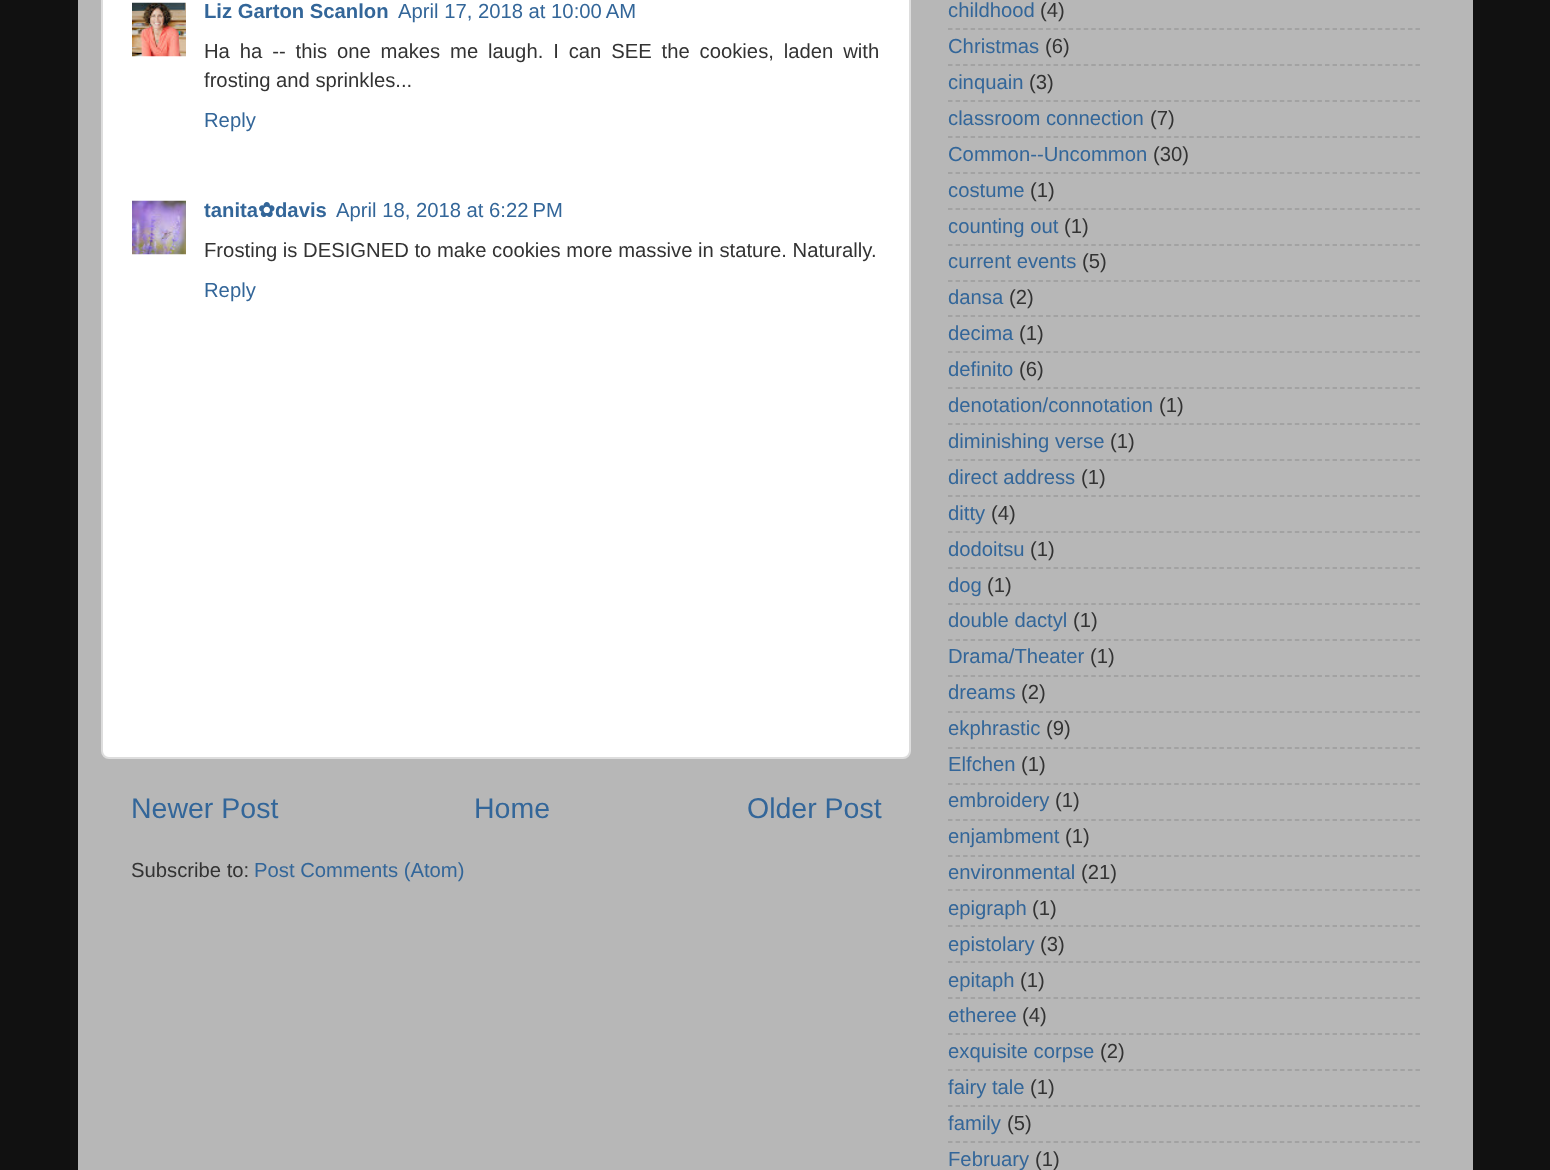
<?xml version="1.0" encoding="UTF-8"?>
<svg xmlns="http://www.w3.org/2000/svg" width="1550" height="1170">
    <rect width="100%" height="100%" fill="#111111"/>
    <rect x="78" y="0" width="1395" height="1170" fill="#B7B7B7"/>
    <rect x="102" y="-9" width="808" height="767" rx="7" fill="#FFFFFF" stroke="#DDDDDD" stroke-width="2"/>
    <image x="132" y="2" width="54" height="55" href="img_01.png"/>
    <text x="204" y="18" font-family="Liberation Sans" font-size="20.25" font-weight="700" fill="#336699">Liz Garton Scanlon</text>
    <text x="398" y="18" font-family="Liberation Sans" font-size="20.25" fill="#336699">April 17, 2018 at 10:00 AM</text>
    <text font-family="Liberation Sans" font-size="20.25" fill="#333333">
        <tspan x="204" y="58" word-spacing="4.25">Ha ha -- this one makes me laugh. I can SEE the cookies, laden with</tspan>
        <tspan x="204" y="87">frosting and sprinkles...</tspan>
    </text>
    <text x="204" y="127" font-family="Liberation Sans" font-size="20.25" fill="#336699">Reply</text>
    <image x="132" y="200" width="54" height="55" href="img_02.png"/>
    <text x="204" y="217" font-family="Liberation Sans" font-size="20.25" font-weight="700" fill="#336699">tanita</text>
    <text x="258" y="217" font-family="DejaVu Sans" font-size="20.25" font-weight="700" fill="#336699">✿</text>
    <text x="275" y="217" font-family="Liberation Sans" font-size="20.25" font-weight="700" fill="#336699">davis</text>
    <text x="336" y="217" font-family="Liberation Sans" font-size="20.25" fill="#336699">April 18, 2018 at 6:22 PM</text>
    <text x="204" y="257" font-family="Liberation Sans" font-size="20.25" fill="#333333">Frosting is DESIGNED to make cookies more massive in stature. Naturally.</text>
    <text x="204" y="297" font-family="Liberation Sans" font-size="20.25" fill="#336699">Reply</text>
    <text x="131" y="818" font-family="Liberation Sans" font-size="28.5" fill="#336699">Newer Post</text>
    <text x="474" y="818" font-family="Liberation Sans" font-size="28.5" fill="#336699">Home</text>
    <text x="747" y="818" font-family="Liberation Sans" font-size="28.5" fill="#336699">Older Post</text>
    <text x="131" y="877" font-family="Liberation Sans" font-size="20.25" fill="#333333">Subscribe to:</text>
    <text x="254" y="877" font-family="Liberation Sans" font-size="20.25" fill="#336699">Post Comments (Atom)</text>
    <text x="948" y="17" font-family="Liberation Sans" font-size="20.25" fill="#336699">childhood</text>
    <text x="1040" y="17" font-family="Liberation Sans" font-size="20.25" fill="#333333">(4)</text>
    <path d="M 948 29 H 1420.5" fill="none" stroke="#9C9C9C" stroke-width="1.5" stroke-dasharray="4.5 3.04"/>
    <text x="948" y="53" font-family="Liberation Sans" font-size="20.25" fill="#336699">Christmas</text>
    <text x="1045" y="53" font-family="Liberation Sans" font-size="20.25" fill="#333333">(6)</text>
    <path d="M 948 65 H 1420.5" fill="none" stroke="#9C9C9C" stroke-width="1.5" stroke-dasharray="4.5 3.04"/>
    <text x="948" y="89" font-family="Liberation Sans" font-size="20.25" fill="#336699">cinquain</text>
    <text x="1029" y="89" font-family="Liberation Sans" font-size="20.25" fill="#333333">(3)</text>
    <path d="M 948 101 H 1420.5" fill="none" stroke="#9C9C9C" stroke-width="1.5" stroke-dasharray="4.5 3.04"/>
    <text x="948" y="125" font-family="Liberation Sans" font-size="20.25" fill="#336699">classroom connection</text>
    <text x="1150" y="125" font-family="Liberation Sans" font-size="20.25" fill="#333333">(7)</text>
    <path d="M 948 137 H 1420.5" fill="none" stroke="#9C9C9C" stroke-width="1.5" stroke-dasharray="4.5 3.04"/>
    <text x="948" y="161" font-family="Liberation Sans" font-size="20.25" fill="#336699">Common--Uncommon</text>
    <text x="1153" y="161" font-family="Liberation Sans" font-size="20.25" fill="#333333">(30)</text>
    <path d="M 948 173 H 1420.5" fill="none" stroke="#9C9C9C" stroke-width="1.5" stroke-dasharray="4.5 3.04"/>
    <text x="948" y="197" font-family="Liberation Sans" font-size="20.25" fill="#336699">costume</text>
    <text x="1030" y="197" font-family="Liberation Sans" font-size="20.25" fill="#333333">(1)</text>
    <path d="M 948 209 H 1420.5" fill="none" stroke="#9C9C9C" stroke-width="1.5" stroke-dasharray="4.5 3.04"/>
    <text x="948" y="233" font-family="Liberation Sans" font-size="20.25" fill="#336699">counting out</text>
    <text x="1064" y="233" font-family="Liberation Sans" font-size="20.25" fill="#333333">(1)</text>
    <path d="M 948 245 H 1420.5" fill="none" stroke="#9C9C9C" stroke-width="1.5" stroke-dasharray="4.5 3.04"/>
    <text x="948" y="268" font-family="Liberation Sans" font-size="20.25" fill="#336699">current events</text>
    <text x="1082" y="268" font-family="Liberation Sans" font-size="20.25" fill="#333333">(5)</text>
    <path d="M 948 281 H 1420.5" fill="none" stroke="#9C9C9C" stroke-width="1.5" stroke-dasharray="4.5 3.04"/>
    <text x="948" y="304" font-family="Liberation Sans" font-size="20.25" fill="#336699">dansa</text>
    <text x="1009" y="304" font-family="Liberation Sans" font-size="20.25" fill="#333333">(2)</text>
    <path d="M 948 316 H 1420.5" fill="none" stroke="#9C9C9C" stroke-width="1.5" stroke-dasharray="4.5 3.04"/>
    <text x="948" y="340" font-family="Liberation Sans" font-size="20.25" fill="#336699">decima</text>
    <text x="1019" y="340" font-family="Liberation Sans" font-size="20.25" fill="#333333">(1)</text>
    <path d="M 948 352 H 1420.5" fill="none" stroke="#9C9C9C" stroke-width="1.5" stroke-dasharray="4.5 3.04"/>
    <text x="948" y="376" font-family="Liberation Sans" font-size="20.25" fill="#336699">definito</text>
    <text x="1019" y="376" font-family="Liberation Sans" font-size="20.25" fill="#333333">(6)</text>
    <path d="M 948 388 H 1420.5" fill="none" stroke="#9C9C9C" stroke-width="1.5" stroke-dasharray="4.5 3.04"/>
    <text x="948" y="412" font-family="Liberation Sans" font-size="20.25" fill="#336699">denotation/connotation</text>
    <text x="1159" y="412" font-family="Liberation Sans" font-size="20.25" fill="#333333">(1)</text>
    <path d="M 948 424 H 1420.5" fill="none" stroke="#9C9C9C" stroke-width="1.5" stroke-dasharray="4.5 3.04"/>
    <text x="948" y="448" font-family="Liberation Sans" font-size="20.25" fill="#336699">diminishing verse</text>
    <text x="1110" y="448" font-family="Liberation Sans" font-size="20.25" fill="#333333">(1)</text>
    <path d="M 948 460 H 1420.5" fill="none" stroke="#9C9C9C" stroke-width="1.5" stroke-dasharray="4.5 3.04"/>
    <text x="948" y="484" font-family="Liberation Sans" font-size="20.25" fill="#336699">direct address</text>
    <text x="1081" y="484" font-family="Liberation Sans" font-size="20.25" fill="#333333">(1)</text>
    <path d="M 948 496 H 1420.5" fill="none" stroke="#9C9C9C" stroke-width="1.5" stroke-dasharray="4.5 3.04"/>
    <text x="948" y="520" font-family="Liberation Sans" font-size="20.25" fill="#336699">ditty</text>
    <text x="991" y="520" font-family="Liberation Sans" font-size="20.25" fill="#333333">(4)</text>
    <path d="M 948 532 H 1420.5" fill="none" stroke="#9C9C9C" stroke-width="1.5" stroke-dasharray="4.5 3.04"/>
    <text x="948" y="556" font-family="Liberation Sans" font-size="20.25" fill="#336699">dodoitsu</text>
    <text x="1030" y="556" font-family="Liberation Sans" font-size="20.25" fill="#333333">(1)</text>
    <path d="M 948 568 H 1420.5" fill="none" stroke="#9C9C9C" stroke-width="1.5" stroke-dasharray="4.5 3.04"/>
    <text x="948" y="592" font-family="Liberation Sans" font-size="20.25" fill="#336699">dog</text>
    <text x="987" y="592" font-family="Liberation Sans" font-size="20.25" fill="#333333">(1)</text>
    <path d="M 948 604 H 1420.5" fill="none" stroke="#9C9C9C" stroke-width="1.5" stroke-dasharray="4.5 3.04"/>
    <text x="948" y="627" font-family="Liberation Sans" font-size="20.25" fill="#336699">double dactyl</text>
    <text x="1073" y="627" font-family="Liberation Sans" font-size="20.25" fill="#333333">(1)</text>
    <path d="M 948 640 H 1420.5" fill="none" stroke="#9C9C9C" stroke-width="1.5" stroke-dasharray="4.5 3.04"/>
    <text x="948" y="663" font-family="Liberation Sans" font-size="20.25" fill="#336699">Drama/Theater</text>
    <text x="1090" y="663" font-family="Liberation Sans" font-size="20.25" fill="#333333">(1)</text>
    <path d="M 948 676 H 1420.5" fill="none" stroke="#9C9C9C" stroke-width="1.5" stroke-dasharray="4.5 3.04"/>
    <text x="948" y="699" font-family="Liberation Sans" font-size="20.25" fill="#336699">dreams</text>
    <text x="1021" y="699" font-family="Liberation Sans" font-size="20.25" fill="#333333">(2)</text>
    <path d="M 948 712 H 1420.5" fill="none" stroke="#9C9C9C" stroke-width="1.5" stroke-dasharray="4.5 3.04"/>
    <text x="948" y="735" font-family="Liberation Sans" font-size="20.25" fill="#336699">ekphrastic</text>
    <text x="1046" y="735" font-family="Liberation Sans" font-size="20.25" fill="#333333">(9)</text>
    <path d="M 948 748 H 1420.5" fill="none" stroke="#9C9C9C" stroke-width="1.5" stroke-dasharray="4.5 3.04"/>
    <text x="948" y="771" font-family="Liberation Sans" font-size="20.25" fill="#336699">Elfchen</text>
    <text x="1021" y="771" font-family="Liberation Sans" font-size="20.25" fill="#333333">(1)</text>
    <path d="M 948 784 H 1420.5" fill="none" stroke="#9C9C9C" stroke-width="1.5" stroke-dasharray="4.5 3.04"/>
    <text x="948" y="807" font-family="Liberation Sans" font-size="20.25" fill="#336699">embroidery</text>
    <text x="1055" y="807" font-family="Liberation Sans" font-size="20.25" fill="#333333">(1)</text>
    <path d="M 948 820 H 1420.5" fill="none" stroke="#9C9C9C" stroke-width="1.5" stroke-dasharray="4.5 3.04"/>
    <text x="948" y="843" font-family="Liberation Sans" font-size="20.25" fill="#336699">enjambment</text>
    <text x="1065" y="843" font-family="Liberation Sans" font-size="20.25" fill="#333333">(1)</text>
    <path d="M 948 856 H 1420.5" fill="none" stroke="#9C9C9C" stroke-width="1.5" stroke-dasharray="4.5 3.04"/>
    <text x="948" y="879" font-family="Liberation Sans" font-size="20.25" fill="#336699">environmental</text>
    <text x="1081" y="879" font-family="Liberation Sans" font-size="20.25" fill="#333333">(21)</text>
    <path d="M 948 890 H 1420.5" fill="none" stroke="#9C9C9C" stroke-width="1.5" stroke-dasharray="4.5 3.04"/>
    <text x="948" y="915" font-family="Liberation Sans" font-size="20.25" fill="#336699">epigraph</text>
    <text x="1032" y="915" font-family="Liberation Sans" font-size="20.25" fill="#333333">(1)</text>
    <path d="M 948 926 H 1420.5" fill="none" stroke="#9C9C9C" stroke-width="1.5" stroke-dasharray="4.5 3.04"/>
    <text x="948" y="951" font-family="Liberation Sans" font-size="20.25" fill="#336699">epistolary</text>
    <text x="1040" y="951" font-family="Liberation Sans" font-size="20.25" fill="#333333">(3)</text>
    <path d="M 948 962 H 1420.5" fill="none" stroke="#9C9C9C" stroke-width="1.5" stroke-dasharray="4.5 3.04"/>
    <text x="948" y="987" font-family="Liberation Sans" font-size="20.25" fill="#336699">epitaph</text>
    <text x="1020" y="987" font-family="Liberation Sans" font-size="20.25" fill="#333333">(1)</text>
    <path d="M 948 998 H 1420.5" fill="none" stroke="#9C9C9C" stroke-width="1.5" stroke-dasharray="4.5 3.04"/>
    <text x="948" y="1022" font-family="Liberation Sans" font-size="20.25" fill="#336699">etheree</text>
    <text x="1022" y="1022" font-family="Liberation Sans" font-size="20.25" fill="#333333">(4)</text>
    <path d="M 948 1034 H 1420.5" fill="none" stroke="#9C9C9C" stroke-width="1.5" stroke-dasharray="4.5 3.04"/>
    <text x="948" y="1058" font-family="Liberation Sans" font-size="20.25" fill="#336699">exquisite corpse</text>
    <text x="1100" y="1058" font-family="Liberation Sans" font-size="20.25" fill="#333333">(2)</text>
    <path d="M 948 1070 H 1420.5" fill="none" stroke="#9C9C9C" stroke-width="1.5" stroke-dasharray="4.5 3.04"/>
    <text x="948" y="1094" font-family="Liberation Sans" font-size="20.25" fill="#336699">fairy tale</text>
    <text x="1030" y="1094" font-family="Liberation Sans" font-size="20.25" fill="#333333">(1)</text>
    <path d="M 948 1106 H 1420.5" fill="none" stroke="#9C9C9C" stroke-width="1.5" stroke-dasharray="4.5 3.04"/>
    <text x="948" y="1130" font-family="Liberation Sans" font-size="20.25" fill="#336699">family</text>
    <text x="1007" y="1130" font-family="Liberation Sans" font-size="20.25" fill="#333333">(5)</text>
    <path d="M 948 1142 H 1420.5" fill="none" stroke="#9C9C9C" stroke-width="1.5" stroke-dasharray="4.5 3.04"/>
    <text x="948" y="1166" font-family="Liberation Sans" font-size="20.25" fill="#336699">February</text>
    <text x="1035" y="1166" font-family="Liberation Sans" font-size="20.25" fill="#333333">(1)</text>
</svg>
